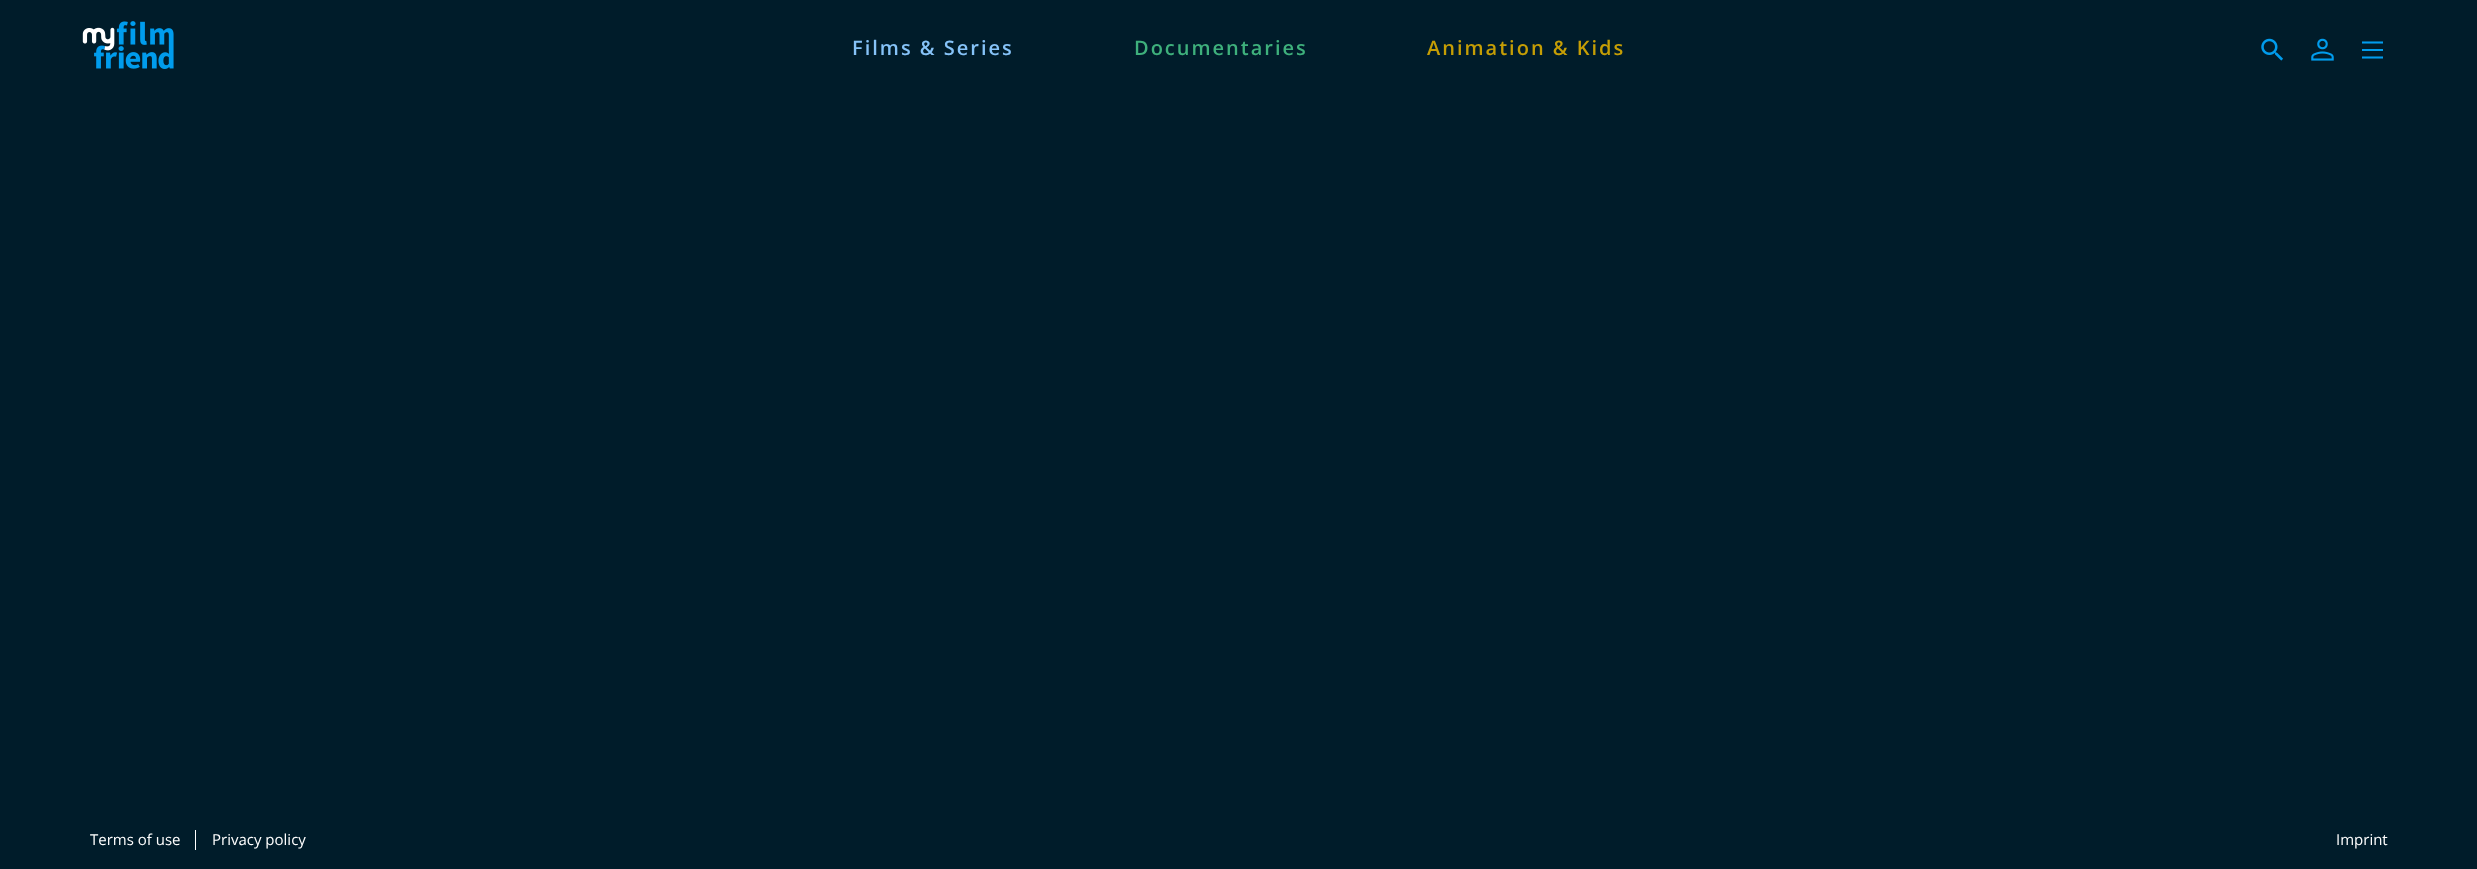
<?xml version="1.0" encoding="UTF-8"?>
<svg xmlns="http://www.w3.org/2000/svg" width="2477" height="869">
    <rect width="100%" height="100%" fill="#001C2A"/>
    <image x="82" y="21" width="92" height="48" href="img_01.png"/>
    <text x="852" y="55" font-family="Open Sans" font-size="20" font-weight="600" letter-spacing="2" fill="#86C3F8">Films &amp; Series</text>
    <text x="1134" y="55" font-family="Open Sans" font-size="20" font-weight="600" letter-spacing="2" fill="#3EB07C">Documentaries</text>
    <text x="1427" y="55" font-family="Open Sans" font-size="20" font-weight="600" letter-spacing="2" fill="#C59E05">Animation &amp; Kids</text>
    <image x="2261" y="38" width="22" height="23" href="img_02.png"/>
    <image x="2311" y="38" width="23" height="23" href="img_03.png"/>
    <path d="M 2362 42.5 H 2383" fill="none" stroke="#009CED" stroke-width="2.1"/>
    <rect x="2362" y="49" width="21" height="2" fill="#009CED"/>
    <path d="M 2362 57.5 H 2383" fill="none" stroke="#009CED" stroke-width="2.1"/>
    <text x="90" y="845" font-family="Open Sans" font-size="15" fill="#FFFFFF">Terms of use</text>
    <rect x="195" y="830" width="1" height="20" fill="#FFFFFF"/>
    <text x="212" y="845" font-family="Open Sans" font-size="15" fill="#FFFFFF">Privacy policy</text>
    <text x="2336" y="845" font-family="Open Sans" font-size="15" fill="#FFFFFF">Imprint</text>
</svg>
